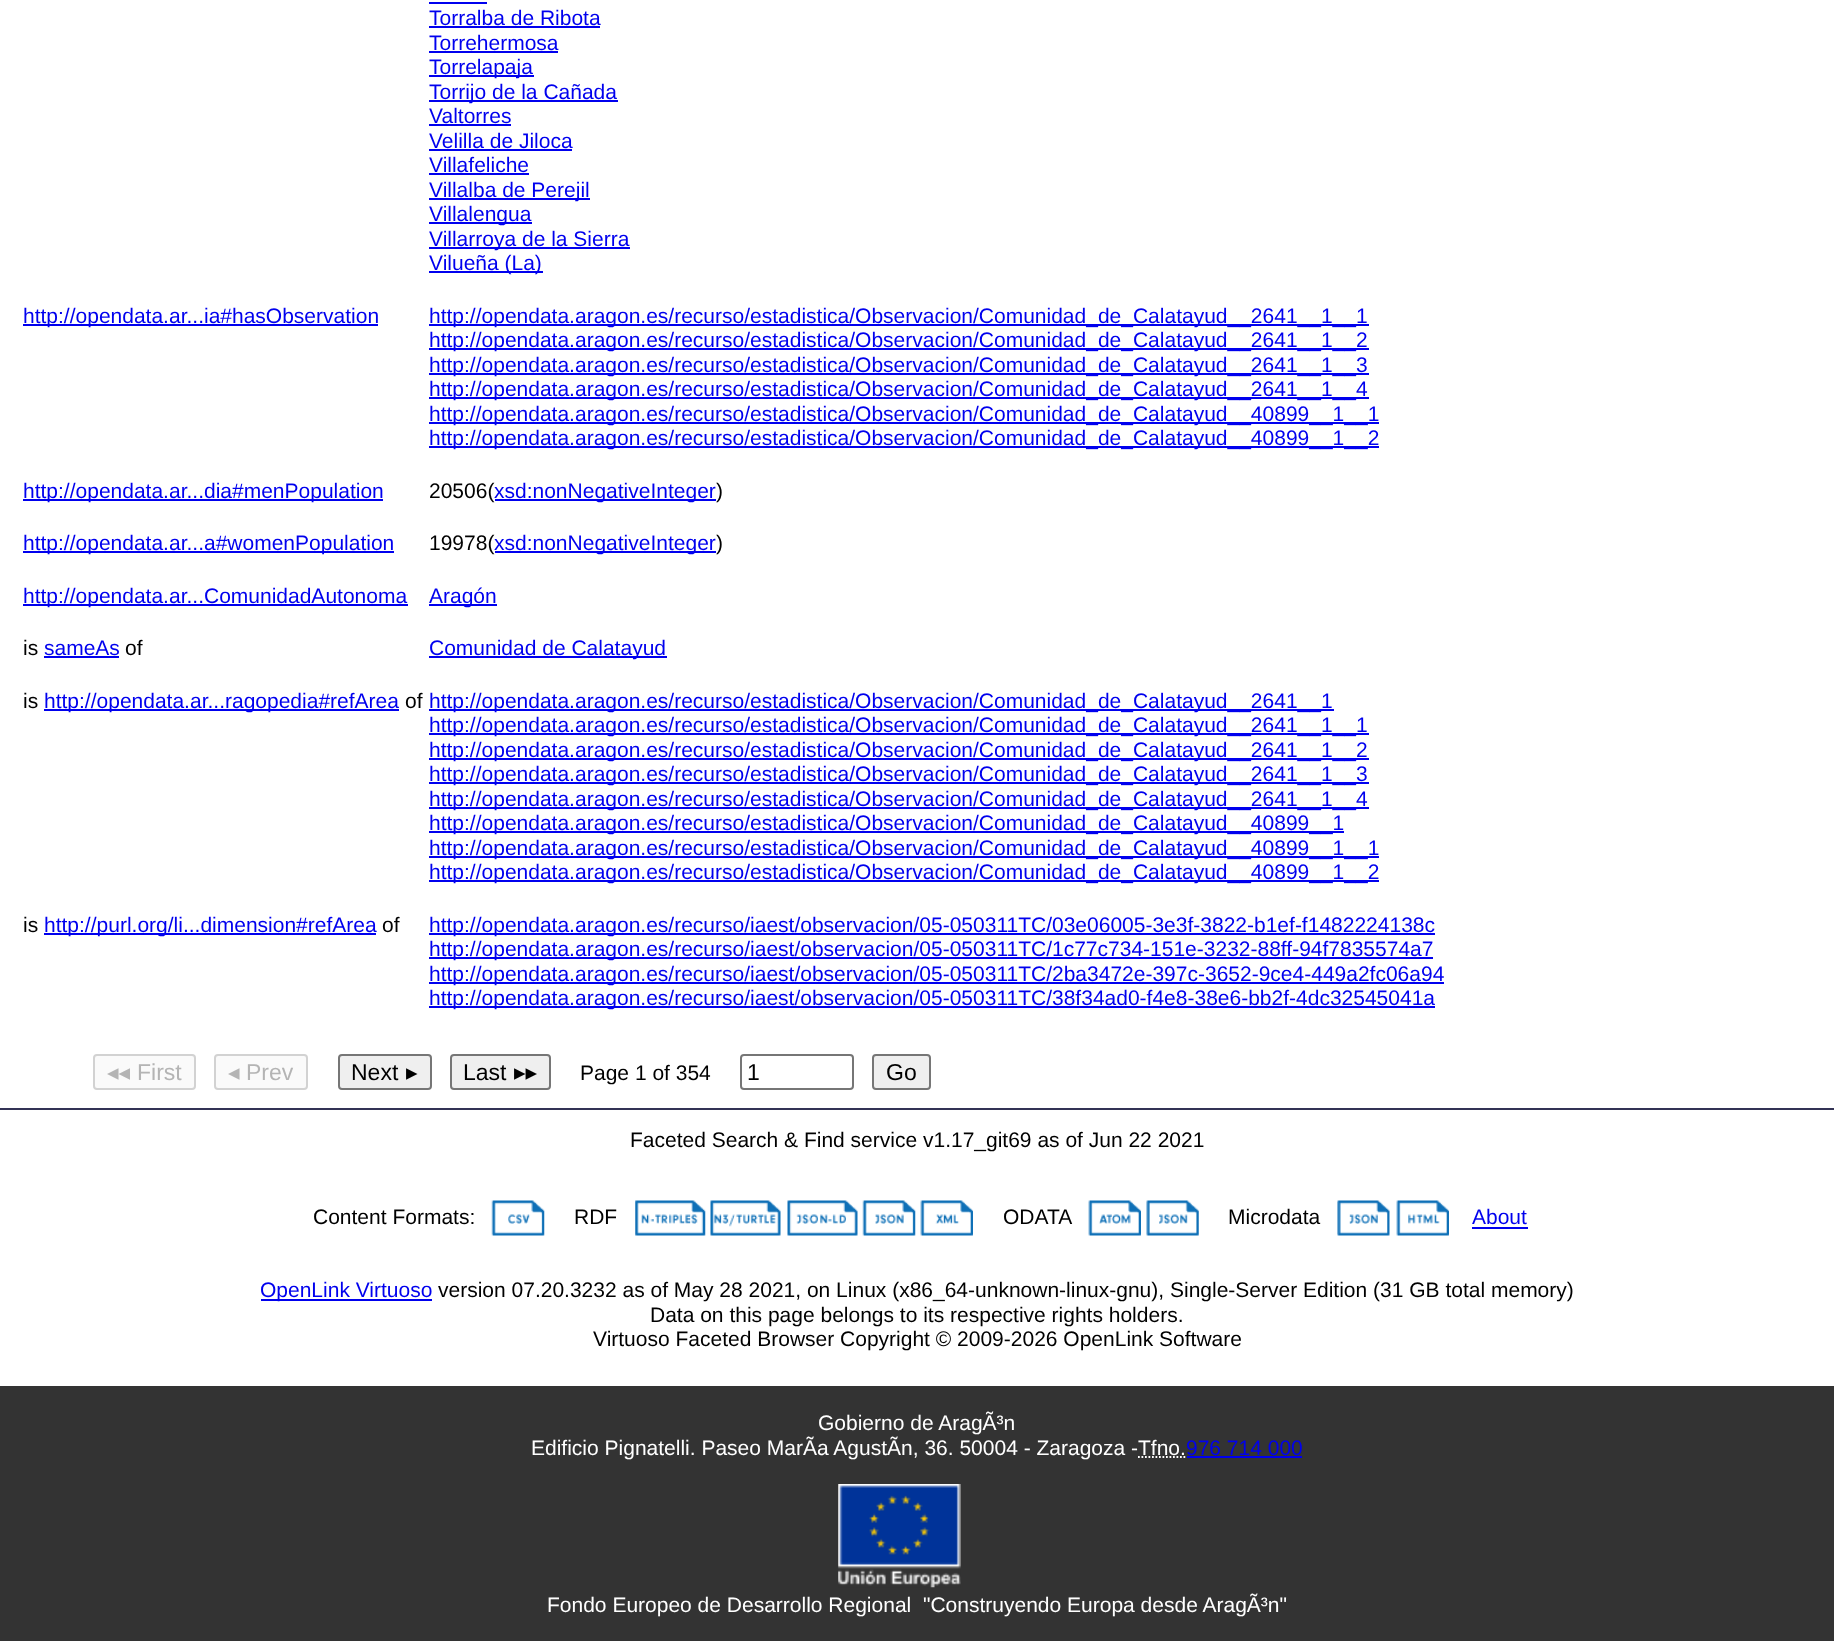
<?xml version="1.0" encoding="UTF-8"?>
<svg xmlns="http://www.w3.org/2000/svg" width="1834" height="1641">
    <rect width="100%" height="100%" fill="#FFFFFF"/>
    <rect x="429" y="2" width="58" height="2" fill="#0000EE"/>
    <text x="429" y="25" font-family="Liberation Sans" font-size="21" fill="#0000EE">Torralba de Ribota</text>
    <rect x="429" y="26" width="171" height="2" fill="#0000EE"/>
    <text x="429" y="50" font-family="Liberation Sans" font-size="21" fill="#0000EE">Torrehermosa</text>
    <rect x="429" y="51" width="129" height="2" fill="#0000EE"/>
    <rect x="429" y="75" width="105" height="2" fill="#0000EE"/>
    <text x="429" y="74" font-family="Liberation Sans" font-size="21" fill="#0000EE">Torrelapaja</text>
    <rect x="429" y="100" width="189" height="2" fill="#0000EE"/>
    <text font-family="Liberation Sans" font-size="21" fill="#0000EE">
        <tspan x="429" y="99">Torrijo de la Cañada</tspan>
        <tspan x="429" y="123">Valtorres</tspan>
    </text>
    <rect x="429" y="124" width="82" height="2" fill="#0000EE"/>
    <text x="429" y="148" font-family="Liberation Sans" font-size="21" fill="#0000EE">Velilla de Jiloca</text>
    <rect x="429" y="149" width="143" height="2" fill="#0000EE"/>
    <text x="429" y="172" font-family="Liberation Sans" font-size="21" fill="#0000EE">Villafeliche</text>
    <rect x="429" y="173" width="100" height="2" fill="#0000EE"/>
    <rect x="429" y="198" width="161" height="2" fill="#0000EE"/>
    <text x="429" y="197" font-family="Liberation Sans" font-size="21" fill="#0000EE">Villalba de Perejil</text>
    <rect x="429" y="222" width="103" height="2" fill="#0000EE"/>
    <text x="429" y="221" font-family="Liberation Sans" font-size="21" fill="#0000EE">Villalengua</text>
    <rect x="429" y="247" width="201" height="2" fill="#0000EE"/>
    <text x="429" y="246" font-family="Liberation Sans" font-size="21" fill="#0000EE">Villarroya de la Sierra</text>
    <rect x="429" y="271" width="114" height="2" fill="#0000EE"/>
    <text x="429" y="270" font-family="Liberation Sans" font-size="21" fill="#0000EE">Vilueña (La)</text>
    <rect x="23" y="324" width="355" height="2" fill="#0000EE"/>
    <text x="23" y="323" font-family="Liberation Sans" font-size="21" fill="#0000EE">http://opendata.ar...ia#hasObservation</text>
    <rect x="429" y="324" width="940" height="2" fill="#0000EE"/>
    <text x="429" y="323" font-family="Liberation Sans" font-size="21" fill="#0000EE">http://opendata.aragon.es/recurso/estadistica/Observacion/Comunidad_de_Calatayud__2641__1__1</text>
    <rect x="429" y="348" width="940" height="2" fill="#0000EE"/>
    <text x="429" y="347" font-family="Liberation Sans" font-size="21" fill="#0000EE">http://opendata.aragon.es/recurso/estadistica/Observacion/Comunidad_de_Calatayud__2641__1__2</text>
    <rect x="429" y="373" width="940" height="2" fill="#0000EE"/>
    <text x="429" y="372" font-family="Liberation Sans" font-size="21" fill="#0000EE">http://opendata.aragon.es/recurso/estadistica/Observacion/Comunidad_de_Calatayud__2641__1__3</text>
    <rect x="429" y="397" width="940" height="2" fill="#0000EE"/>
    <text x="429" y="396" font-family="Liberation Sans" font-size="21" fill="#0000EE">http://opendata.aragon.es/recurso/estadistica/Observacion/Comunidad_de_Calatayud__2641__1__4</text>
    <rect x="429" y="422" width="950" height="2" fill="#0000EE"/>
    <text x="429" y="421" font-family="Liberation Sans" font-size="21" fill="#0000EE">http://opendata.aragon.es/recurso/estadistica/Observacion/Comunidad_de_Calatayud__40899__1__1</text>
    <rect x="429" y="446" width="950" height="2" fill="#0000EE"/>
    <text x="429" y="445" font-family="Liberation Sans" font-size="21" fill="#0000EE">http://opendata.aragon.es/recurso/estadistica/Observacion/Comunidad_de_Calatayud__40899__1__2</text>
    <rect x="23" y="499" width="360" height="2" fill="#0000EE"/>
    <text x="23" y="498" font-family="Liberation Sans" font-size="21" fill="#0000EE">http://opendata.ar...dia#menPopulation</text>
    <text x="429" y="498" font-family="Liberation Sans" font-size="21" fill="#000000">20506(</text>
    <rect x="495" y="499" width="221" height="2" fill="#0000EE"/>
    <text x="494" y="498" font-family="Liberation Sans" font-size="21" fill="#0000EE">xsd:nonNegativeInteger</text>
    <text x="716" y="498" font-family="Liberation Sans" font-size="21" fill="#000000">)</text>
    <rect x="23" y="551" width="371" height="2" fill="#0000EE"/>
    <text x="23" y="550" font-family="Liberation Sans" font-size="21" fill="#0000EE">http://opendata.ar...a#womenPopulation</text>
    <text x="429" y="550" font-family="Liberation Sans" font-size="21" fill="#000000">19978(</text>
    <rect x="495" y="551" width="221" height="2" fill="#0000EE"/>
    <text x="494" y="550" font-family="Liberation Sans" font-size="21" fill="#0000EE">xsd:nonNegativeInteger</text>
    <text x="716" y="550" font-family="Liberation Sans" font-size="21" fill="#000000">)</text>
    <rect x="23" y="604" width="385" height="2" fill="#0000EE"/>
    <text x="23" y="603" font-family="Liberation Sans" font-size="21" fill="#0000EE">http://opendata.ar...ComunidadAutonoma</text>
    <rect x="429" y="604" width="68" height="2" fill="#0000EE"/>
    <text x="429" y="603" font-family="Liberation Sans" font-size="21" fill="#0000EE">Aragón</text>
    <text x="23" y="655" font-family="Liberation Sans" font-size="21" fill="#000000">is</text>
    <text x="44" y="655" font-family="Liberation Sans" font-size="21" fill="#0000EE">sameAs</text>
    <rect x="44" y="656" width="75" height="2" fill="#0000EE"/>
    <text x="125" y="655" font-family="Liberation Sans" font-size="21" fill="#000000">of</text>
    <rect x="429" y="656" width="238" height="2" fill="#0000EE"/>
    <text x="429" y="655" font-family="Liberation Sans" font-size="21" fill="#0000EE">Comunidad de Calatayud</text>
    <text x="23" y="708" font-family="Liberation Sans" font-size="21" fill="#000000">is</text>
    <rect x="44" y="709" width="355" height="2" fill="#0000EE"/>
    <text x="44" y="708" font-family="Liberation Sans" font-size="21" fill="#0000EE">http://opendata.ar...ragopedia#refArea</text>
    <text x="405" y="708" font-family="Liberation Sans" font-size="21" fill="#000000">of</text>
    <rect x="429" y="709" width="905" height="2" fill="#0000EE"/>
    <text x="429" y="708" font-family="Liberation Sans" font-size="21" fill="#0000EE">http://opendata.aragon.es/recurso/estadistica/Observacion/Comunidad_de_Calatayud__2641__1</text>
    <rect x="429" y="733" width="940" height="2" fill="#0000EE"/>
    <text x="429" y="732" font-family="Liberation Sans" font-size="21" fill="#0000EE">http://opendata.aragon.es/recurso/estadistica/Observacion/Comunidad_de_Calatayud__2641__1__1</text>
    <rect x="429" y="758" width="940" height="2" fill="#0000EE"/>
    <text x="429" y="757" font-family="Liberation Sans" font-size="21" fill="#0000EE">http://opendata.aragon.es/recurso/estadistica/Observacion/Comunidad_de_Calatayud__2641__1__2</text>
    <rect x="429" y="782" width="940" height="2" fill="#0000EE"/>
    <text x="429" y="781" font-family="Liberation Sans" font-size="21" fill="#0000EE">http://opendata.aragon.es/recurso/estadistica/Observacion/Comunidad_de_Calatayud__2641__1__3</text>
    <rect x="429" y="807" width="940" height="2" fill="#0000EE"/>
    <text x="429" y="806" font-family="Liberation Sans" font-size="21" fill="#0000EE">http://opendata.aragon.es/recurso/estadistica/Observacion/Comunidad_de_Calatayud__2641__1__4</text>
    <rect x="429" y="831" width="915" height="2" fill="#0000EE"/>
    <text x="429" y="830" font-family="Liberation Sans" font-size="21" fill="#0000EE">http://opendata.aragon.es/recurso/estadistica/Observacion/Comunidad_de_Calatayud__40899__1</text>
    <rect x="429" y="856" width="950" height="2" fill="#0000EE"/>
    <text x="429" y="855" font-family="Liberation Sans" font-size="21" fill="#0000EE">http://opendata.aragon.es/recurso/estadistica/Observacion/Comunidad_de_Calatayud__40899__1__1</text>
    <rect x="429" y="880" width="950" height="2" fill="#0000EE"/>
    <text x="429" y="879" font-family="Liberation Sans" font-size="21" fill="#0000EE">http://opendata.aragon.es/recurso/estadistica/Observacion/Comunidad_de_Calatayud__40899__1__2</text>
    <text x="23" y="932" font-family="Liberation Sans" font-size="21" fill="#000000">is</text>
    <rect x="44" y="933" width="332" height="2" fill="#0000EE"/>
    <text x="44" y="932" font-family="Liberation Sans" font-size="21" fill="#0000EE">http://purl.org/li...dimension#refArea</text>
    <text x="382" y="932" font-family="Liberation Sans" font-size="21" fill="#000000">of</text>
    <rect x="429" y="933" width="1006" height="2" fill="#0000EE"/>
    <text x="429" y="932" font-family="Liberation Sans" font-size="21" fill="#0000EE">http://opendata.aragon.es/recurso/iaest/observacion/05-050311TC/03e06005-3e3f-3822-b1ef-f1482224138c</text>
    <rect x="429" y="957" width="1004" height="2" fill="#0000EE"/>
    <text x="429" y="956" font-family="Liberation Sans" font-size="21" fill="#0000EE">http://opendata.aragon.es/recurso/iaest/observacion/05-050311TC/1c77c734-151e-3232-88ff-94f7835574a7</text>
    <rect x="429" y="982" width="1015" height="2" fill="#0000EE"/>
    <text x="429" y="981" font-family="Liberation Sans" font-size="21" fill="#0000EE">http://opendata.aragon.es/recurso/iaest/observacion/05-050311TC/2ba3472e-397c-3652-9ce4-449a2fc06a94</text>
    <rect x="429" y="1006" width="1006" height="2" fill="#0000EE"/>
    <text x="429" y="1005" font-family="Liberation Sans" font-size="21" fill="#0000EE">http://opendata.aragon.es/recurso/iaest/observacion/05-050311TC/38f34ad0-f4e8-38e6-bb2f-4dc32545041a</text>
    <rect x="94" y="1055" width="101" height="34" rx="3" fill="#FAFAFA" stroke="#D2D2D2" stroke-width="2"/>
    <text x="107" y="1080" font-family="DejaVu Sans" font-size="23" fill="#B4B4B4">◂◂</text>
    <text x="137" y="1080" font-family="Liberation Sans" font-size="23" fill="#B4B4B4">First</text>
    <rect x="215" y="1055" width="92" height="34" rx="3" fill="#FAFAFA" stroke="#D2D2D2" stroke-width="2"/>
    <text x="228" y="1080" font-family="DejaVu Sans" font-size="23" fill="#B4B4B4">◂</text>
    <text x="246" y="1080" font-family="Liberation Sans" font-size="23" fill="#B4B4B4">Prev</text>
    <rect x="339" y="1055" width="92" height="34" rx="3" fill="#EFEFEF" stroke="#767676" stroke-width="2"/>
    <text x="351" y="1080" font-family="Liberation Sans" font-size="23" fill="#000000">Next</text>
    <text x="406" y="1080" font-family="DejaVu Sans" font-size="23" fill="#000000">▸</text>
    <rect x="451" y="1055" width="99" height="34" rx="3" fill="#EFEFEF" stroke="#767676" stroke-width="2"/>
    <text x="463" y="1080" font-family="Liberation Sans" font-size="23" fill="#000000">Last</text>
    <text x="514" y="1080" font-family="DejaVu Sans" font-size="23" fill="#000000">▸▸</text>
    <text x="580" y="1080" font-family="Liberation Sans" font-size="21" fill="#000000">Page 1 of 354</text>
    <rect x="741" y="1055" width="112" height="34" rx="3" fill="none" stroke="#767676" stroke-width="2"/>
    <text x="747" y="1080" font-family="Liberation Sans" font-size="23" fill="#000000">1</text>
    <rect x="873" y="1055" width="57" height="34" rx="3" fill="#EFEFEF" stroke="#767676" stroke-width="2"/>
    <text x="886" y="1080" font-family="Liberation Sans" font-size="23" fill="#000000">Go</text>
    <rect x="0" y="1108" width="1834" height="2" fill="#333355"/>
    <text x="630" y="1147" font-family="Liberation Sans" font-size="21" fill="#000000">Faceted Search &amp; Find service v1.17_git69 as of Jun 22 2021</text>
    <text x="313" y="1224" font-family="Liberation Sans" font-size="21" fill="#000000">Content Formats:</text>
    <image x="491" y="1200" width="54" height="36" href="img_01.png"/>
    <text x="574" y="1224" font-family="Liberation Sans" font-size="21" fill="#000000">RDF</text>
    <image x="635" y="1200" width="71" height="36" href="img_02.png"/>
    <image x="710" y="1200" width="71" height="36" href="img_03.png"/>
    <image x="787" y="1200" width="71" height="36" href="img_04.png"/>
    <image x="862" y="1200" width="54" height="36" href="img_05.png"/>
    <image x="920" y="1200" width="53" height="36" href="img_06.png"/>
    <text x="1003" y="1224" font-family="Liberation Sans" font-size="21" fill="#000000">ODATA</text>
    <image x="1088" y="1200" width="53" height="36" href="img_07.png"/>
    <image x="1146" y="1200" width="53" height="36" href="img_08.png"/>
    <text x="1228" y="1224" font-family="Liberation Sans" font-size="21" fill="#000000">Microdata</text>
    <image x="1337" y="1200" width="53" height="36" href="img_09.png"/>
    <image x="1396" y="1200" width="53" height="36" href="img_10.png"/>
    <text x="1472" y="1224" font-family="Liberation Sans" font-size="21" fill="#0000EE">About</text>
    <rect x="1472" y="1227" width="56" height="2" fill="#0000EE"/>
    <rect x="261" y="1299" width="171" height="2" fill="#0000EE"/>
    <text x="260" y="1297" font-family="Liberation Sans" font-size="21" fill="#0000EE">OpenLink Virtuoso</text>
    <text x="438" y="1297" font-family="Liberation Sans" font-size="21" fill="#000000">version 07.20.3232 as of May 28 2021, on Linux (x86_64-unknown-linux-gnu), Single-Server Edition (31 GB total memory)</text>
    <text x="650" y="1322" font-family="Liberation Sans" font-size="21" fill="#000000">Data on this page belongs to its respective rights holders.</text>
    <text x="593" y="1346" font-family="Liberation Sans" font-size="21" fill="#000000">Virtuoso Faceted Browser Copyright © 2009-2026 OpenLink Software</text>
    <rect x="0" y="1386" width="1834" height="255" fill="#333333"/>
    <text x="818" y="1430" font-family="Liberation Sans" font-size="21" fill="#FFFFFF">Gobierno de AragÃ³n</text>
    <text x="531" y="1455" font-family="Liberation Sans" font-size="21" fill="#FFFFFF">Edificio Pignatelli. Paseo MarÃa AgustÃn, 36. 50004 - Zaragoza -Tfno.</text>
    <path d="M 1138 1457 H 1186" fill="none" stroke="#FFFFFF" stroke-width="1.8" stroke-dasharray="1.75 1.75"/>
    <text x="1186" y="1455" font-family="Liberation Sans" font-size="21" fill="#0000EE">976 714 000</text>
    <rect x="1187" y="1456" width="115" height="2" fill="#0000EE"/>
    <image x="838" y="1484" width="123" height="104" href="img_11.png"/>
    <text x="547" y="1612" font-family="Liberation Sans" font-size="21" fill="#FFFFFF">Fondo Europeo de Desarrollo Regional</text>
    <text x="923" y="1612" font-family="Liberation Sans" font-size="21" fill="#FFFFFF">"Construyendo Europa desde AragÃ³n"</text>
</svg>
